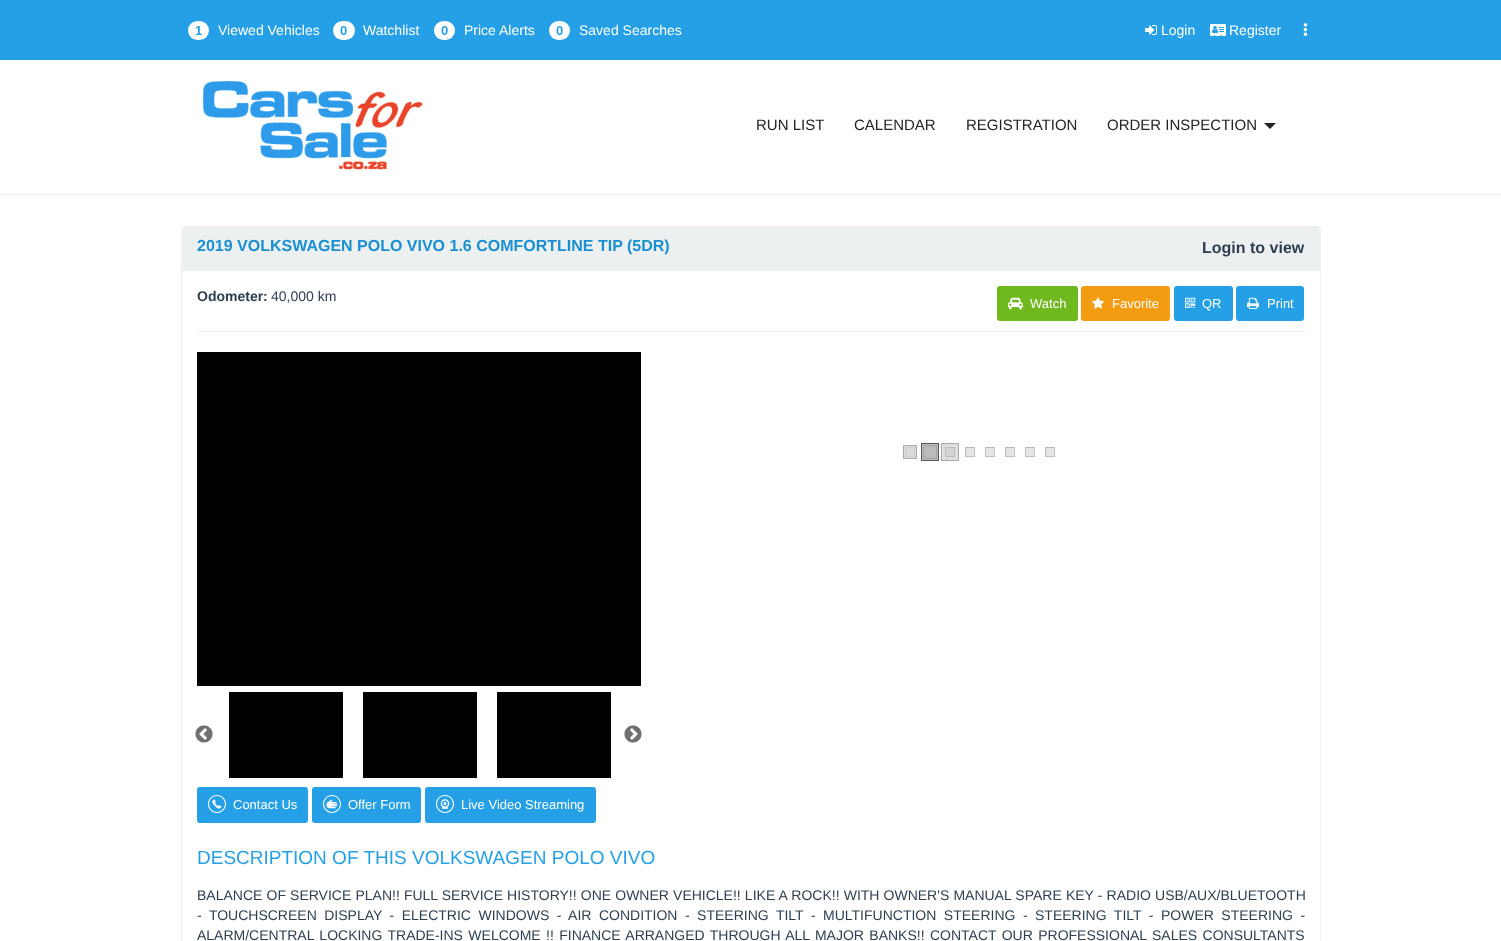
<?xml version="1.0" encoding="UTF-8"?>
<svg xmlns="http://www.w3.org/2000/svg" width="1501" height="941">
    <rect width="100%" height="100%" fill="#FFFFFF"/>
    <rect x="0" y="194" width="1501" height="1" fill="#ECF0F1"/>
    <rect x="0" y="0" width="1501" height="60" fill="#25A0E6"/>
    <rect x="188" y="21" width="21" height="19" rx="9.5" fill="#FFFFFF"/>
    <text x="195" y="35" font-family="Arimo" font-size="13" font-weight="700" fill="#25A0E6">1</text>
    <text x="218" y="35" font-family="Arimo" font-size="14" fill="#FFFFFF">Viewed Vehicles</text>
    <rect x="333" y="21" width="22" height="19" rx="9.5" fill="#FFFFFF"/>
    <text x="340" y="35" font-family="Arimo" font-size="13" font-weight="700" fill="#25A0E6">0</text>
    <text x="363" y="35" font-family="Arimo" font-size="14" fill="#FFFFFF">Watchlist</text>
    <rect x="434" y="21" width="21" height="19" rx="9.5" fill="#FFFFFF"/>
    <text x="441" y="35" font-family="Arimo" font-size="13" font-weight="700" fill="#25A0E6">0</text>
    <text x="464" y="35" font-family="Arimo" font-size="14" fill="#FFFFFF">Price Alerts</text>
    <rect x="549" y="21" width="21" height="19" rx="9.5" fill="#FFFFFF"/>
    <text x="556" y="35" font-family="Arimo" font-size="13" font-weight="700" fill="#25A0E6">0</text>
    <text x="579" y="35" font-family="Arimo" font-size="14" fill="#FFFFFF">Saved Searches</text>
    <image x="1145" y="25" width="12" height="10" href="img_01.png"/>
    <text x="1161" y="35" font-family="Arimo" font-size="14" fill="#FFFFFF">Login</text>
    <image x="1210" y="24" width="16" height="12" href="img_02.png"/>
    <text x="1229" y="35" font-family="Arimo" font-size="14" fill="#FFFFFF">Register</text>
    <image x="1303" y="23" width="5" height="13" href="img_03.png"/>
    <image x="203" y="81" width="220" height="89" href="img_04.png"/>
    <text x="756" y="130" font-family="Arimo" font-size="15" fill="#242424">RUN LIST</text>
    <text x="854" y="130" font-family="Arimo" font-size="15" fill="#242424">CALENDAR</text>
    <text x="966" y="130" font-family="Arimo" font-size="15" fill="#242424">REGISTRATION</text>
    <text x="1107" y="130" font-family="Arimo" font-size="15" fill="#242424">ORDER INSPECTION</text>
    <path d="M 1264 123 H 1276 L 1270 129 Z" fill="#242424"/>
    <rect x="181.5" y="226.5" width="1139" height="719" rx="3.5" fill="none" stroke="#ECF0F1"/>
    <path d="M 185 227 H 1317 C 1318.5 227 1320 228.5 1320 230 V 271 H 182 V 230 C 182 228.5 183.5 227 185 227 Z" fill="#ECF0F1"/>
    <text x="197" y="251" font-family="Arimo" font-size="16" font-weight="700" fill="#1A90D3">2019 VOLKSWAGEN POLO VIVO 1.6 COMFORTLINE TIP (5DR)</text>
    <text x="1202" y="253" font-family="Arimo" font-size="16" font-weight="700" fill="#2C3E50">Login to view</text>
    <text x="197" y="301" font-family="Arimo" font-size="14" font-weight="700" fill="#2C3E50">Odometer:</text>
    <text x="271" y="301" font-family="Arimo" font-size="14" fill="#2C3E50">40,000 km</text>
    <rect x="998" y="287" width="79" height="33" rx="2" fill="#6FB91F" stroke="#6FB91F" stroke-width="2"/>
    <image x="1008" y="297" width="15" height="13" href="img_05.png"/>
    <text x="1030" y="308" font-family="Arimo" font-size="13" fill="#FFFFFF">Watch</text>
    <rect x="1082" y="287" width="87" height="33" rx="2" fill="#F39C12" stroke="#F39C12" stroke-width="2"/>
    <image x="1092" y="297" width="12" height="12" href="img_06.png"/>
    <text x="1112" y="308" font-family="Arimo" font-size="13" fill="#FFFFFF">Favorite</text>
    <rect x="1175" y="287" width="57" height="33" rx="2" fill="#25A0E6" stroke="#25A0E6" stroke-width="2"/>
    <image x="1185" y="297" width="11" height="11" href="img_07.png"/>
    <text x="1202" y="308" font-family="Arimo" font-size="13" fill="#FFFFFF">QR</text>
    <rect x="1237" y="287" width="66" height="33" rx="2" fill="#25A0E6" stroke="#25A0E6" stroke-width="2"/>
    <image x="1247" y="297" width="13" height="12" href="img_08.png"/>
    <text x="1267" y="308" font-family="Arimo" font-size="13" fill="#FFFFFF">Print</text>
    <rect x="197" y="331" width="1108" height="1" fill="#ECF0F1"/>
    <rect x="197" y="352" width="444" height="334" fill="#000000"/>
    <image x="195" y="725" width="18" height="18" href="img_09.png"/>
    <rect x="229" y="692" width="114" height="86" fill="#000000"/>
    <rect x="363" y="692" width="114" height="86" fill="#000000"/>
    <rect x="497" y="692" width="114" height="86" fill="#000000"/>
    <image x="624" y="725" width="18" height="18" href="img_10.png"/>
    <image x="903" y="443" width="152" height="18" href="img_11.png"/>
    <rect x="198" y="788" width="109" height="34" rx="2" fill="#25A0E6" stroke="#25A0E6" stroke-width="2"/>
    <image x="208" y="795" width="18" height="18" href="img_12.png"/>
    <text x="233" y="809" font-family="Arimo" font-size="13" fill="#FFFFFF">Contact Us</text>
    <rect x="313" y="788" width="107" height="34" rx="2" fill="#25A0E6" stroke="#25A0E6" stroke-width="2"/>
    <image x="323" y="795" width="18" height="18" href="img_13.png"/>
    <text x="348" y="809" font-family="Arimo" font-size="13" fill="#FFFFFF">Offer Form</text>
    <rect x="426" y="788" width="169" height="34" rx="2" fill="#25A0E6" stroke="#25A0E6" stroke-width="2"/>
    <image x="436" y="795" width="18" height="18" href="img_14.png"/>
    <text x="461" y="809" font-family="Arimo" font-size="13" fill="#FFFFFF">Live Video Streaming</text>
    <text x="197" y="864" font-family="Arimo" font-size="19" fill="#25A0E6">DESCRIPTION OF THIS VOLKSWAGEN POLO VIVO</text>
    <text font-family="Arimo" font-size="14" fill="#2C3E50">
        <tspan x="197" y="900" word-spacing="0.25">BALANCE OF SERVICE PLAN!! FULL SERVICE HISTORY!! ONE OWNER VEHICLE!! LIKE A ROCK!! WITH OWNER'S MANUAL SPARE KEY - RADIO USB/AUX/BLUETOOTH</tspan>
        <tspan x="197" y="920" word-spacing="3.6">- TOUCHSCREEN DISPLAY - ELECTRIC WINDOWS - AIR CONDITION - STEERING TILT - MULTIFUNCTION STEERING - STEERING TILT - POWER STEERING -</tspan>
        <tspan x="197" y="940" word-spacing="1.5">ALARM/CENTRAL LOCKING TRADE-INS WELCOME !! FINANCE ARRANGED THROUGH ALL MAJOR BANKS!! CONTACT OUR PROFESSIONAL SALES CONSULTANTS</tspan>
    </text>
</svg>
